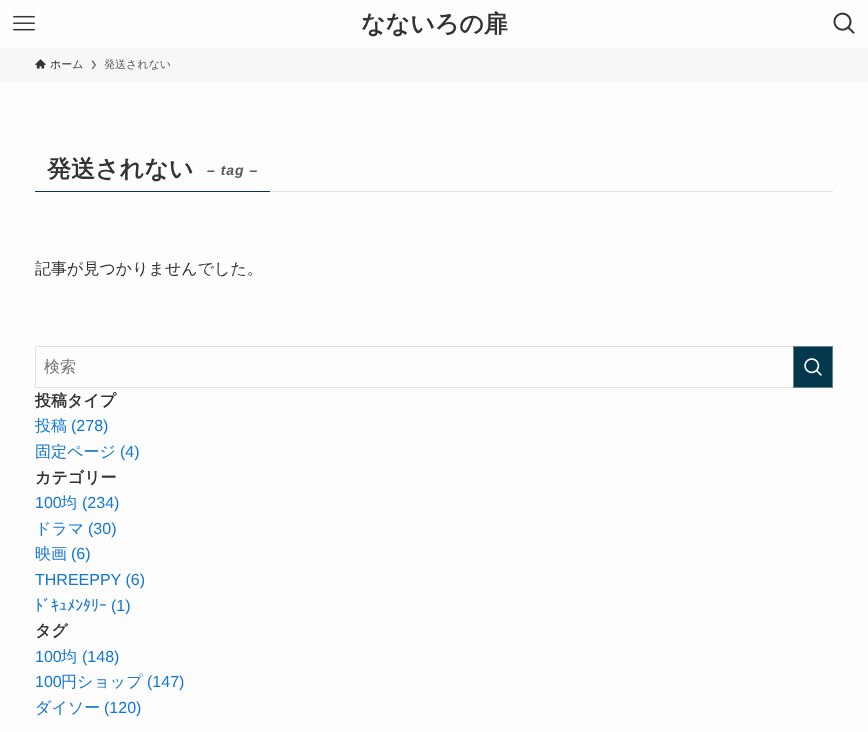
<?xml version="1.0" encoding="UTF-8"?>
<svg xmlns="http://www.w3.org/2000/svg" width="868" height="732">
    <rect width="100%" height="100%" fill="#FDFDFD"/>
    <image x="13" y="15" width="22" height="16" href="img_01.png"/>
    <text x="361" y="32" font-family="WenQuanYi Zen Hei" font-size="24" font-weight="700" fill="#333333">なないろの扉</text>
    <image x="833" y="12" width="22" height="22" href="img_02.png"/>
    <rect x="0" y="48" width="868" height="34" fill="#F7F7F7"/>
    <image x="35" y="59" width="11" height="10" href="img_03.png"/>
    <text x="50" y="68" font-family="WenQuanYi Zen Hei" font-size="11" font-weight="500" fill="#333333">ホーム</text>
    <path d="M 93 60.5 L 91.5 61 L 94.5 65 L 91.5 69 H 93 L 96 65 Z" fill="#5A5A5A"/>
    <text x="104" y="68" font-family="WenQuanYi Zen Hei" font-size="11" font-weight="500" fill="#5A5A5A">発送されない</text>
    <rect x="270" y="191" width="563" height="1" fill="#E2E2E2"/>
    <rect x="35" y="191" width="235" height="1" fill="#04384C"/>
    <text x="47" y="177" font-family="WenQuanYi Zen Hei" font-size="24" font-weight="700" fill="#333333">発送されない</text>
    <text x="207" y="175" font-family="Liberation Sans" font-size="14" font-weight="700" font-style="italic" letter-spacing="1" fill="#5A5A5A">– tag –</text>
    <text x="35" y="274" font-family="WenQuanYi Zen Hei" font-size="16" font-weight="500" fill="#333333">記事が見つかりませんでした。</text>
    <rect x="35.5" y="346.5" width="797" height="41" fill="none" stroke="#E3E3E3"/>
    <text x="44" y="372" font-family="WenQuanYi Zen Hei" font-size="16" font-weight="500" fill="#757575">検索</text>
    <rect x="793.5" y="346.5" width="39" height="41" fill="#04384C" stroke="#66808A"/>
    <image x="804" y="358" width="18" height="18" href="img_04.png"/>
    <text x="35" y="406" font-family="WenQuanYi Zen Hei" font-size="16" font-weight="700" fill="#333333">投稿タイプ</text>
    <text x="35" y="431" font-family="WenQuanYi Zen Hei" font-size="16" font-weight="500" fill="#1176D4">投稿</text>
    <text x="71" y="431" font-family="Liberation Sans" font-size="16" fill="#1176D4">(278)</text>
    <text x="35" y="457" font-family="WenQuanYi Zen Hei" font-size="16" font-weight="500" fill="#1176D4">固定ページ</text>
    <text x="120" y="457" font-family="Liberation Sans" font-size="16" fill="#1176D4">(4)</text>
    <text x="35" y="483" font-family="WenQuanYi Zen Hei" font-size="16" font-weight="700" fill="#333333">カテゴリー</text>
    <text x="35" y="508" font-family="Liberation Sans" font-size="16" fill="#1176D4">100</text>
    <text x="61" y="508" font-family="WenQuanYi Zen Hei" font-size="16" font-weight="500" fill="#1176D4">均</text>
    <text x="82" y="508" font-family="Liberation Sans" font-size="16" fill="#1176D4">(234)</text>
    <text x="35" y="534" font-family="WenQuanYi Zen Hei" font-size="16" font-weight="500" fill="#1176D4">ドラマ</text>
    <text x="88" y="534" font-family="Liberation Sans" font-size="16" fill="#1176D4">(30)</text>
    <text x="35" y="559" font-family="WenQuanYi Zen Hei" font-size="16" font-weight="500" fill="#1176D4">映画</text>
    <text x="71" y="559" font-family="Liberation Sans" font-size="16" fill="#1176D4">(6)</text>
    <text x="35" y="585" font-family="Liberation Sans" font-size="16" fill="#1176D4">THREEPPY (6)</text>
    <text x="35" y="611" font-family="IPAPGothic" font-size="16" fill="#1176D4">ﾄﾞｷｭﾒﾝﾀﾘｰ</text>
    <text x="111" y="611" font-family="Liberation Sans" font-size="16" fill="#1176D4">(1)</text>
    <text x="35" y="636" font-family="WenQuanYi Zen Hei" font-size="16" font-weight="700" fill="#333333">タグ</text>
    <text x="35" y="662" font-family="Liberation Sans" font-size="16" fill="#1176D4">100</text>
    <text x="61" y="662" font-family="WenQuanYi Zen Hei" font-size="16" font-weight="500" fill="#1176D4">均</text>
    <text x="82" y="662" font-family="Liberation Sans" font-size="16" fill="#1176D4">(148)</text>
    <text x="35" y="687" font-family="Liberation Sans" font-size="16" fill="#1176D4">100</text>
    <text x="61" y="687" font-family="WenQuanYi Zen Hei" font-size="16" font-weight="500" fill="#1176D4">円ショップ</text>
    <text x="147" y="687" font-family="Liberation Sans" font-size="16" fill="#1176D4">(147)</text>
    <text x="35" y="713" font-family="WenQuanYi Zen Hei" font-size="16" font-weight="500" fill="#1176D4">ダイソー</text>
    <text x="104" y="713" font-family="Liberation Sans" font-size="16" fill="#1176D4">(120)</text>
</svg>
